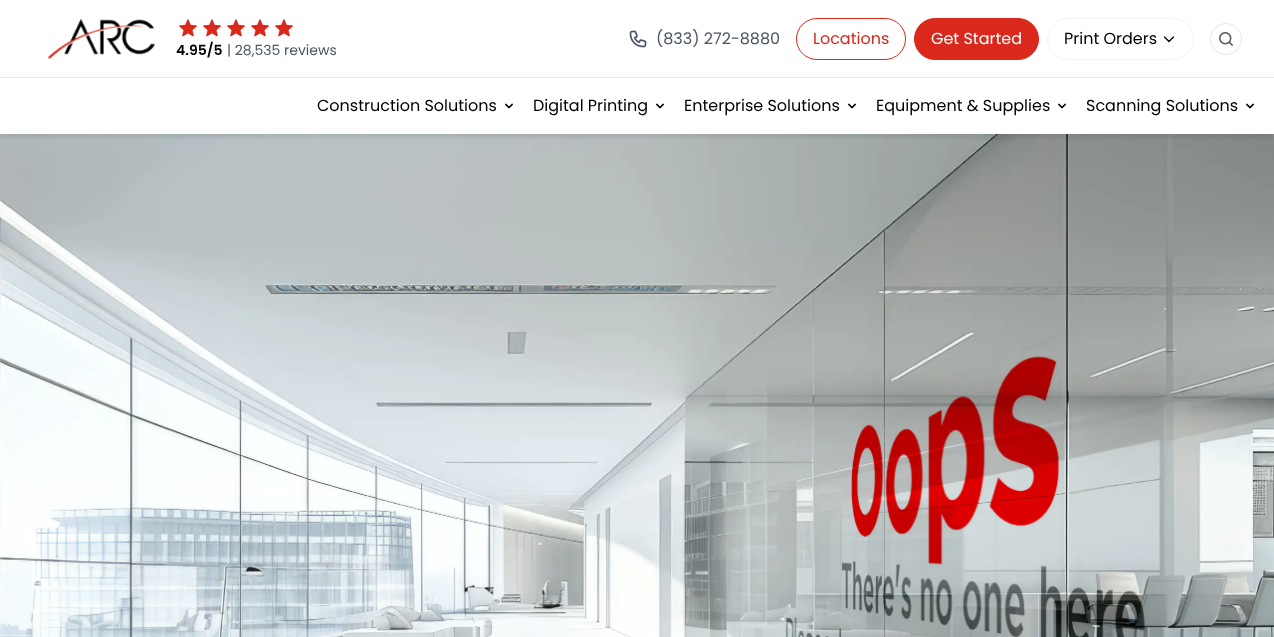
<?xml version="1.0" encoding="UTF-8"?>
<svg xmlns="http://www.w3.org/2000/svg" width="1274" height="637">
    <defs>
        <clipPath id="clip1"><rect x="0" y="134" width="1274" height="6"/></clipPath>
        <filter id="blur1" x="-50%" y="-200%" width="200%" height="500%"><feGaussianBlur stdDeviation="3"/></filter>
    </defs>
    <rect width="100%" height="100%" fill="#FFFFFF"/>
    <image x="0" y="134" width="1274" height="503" href="img_06.png"/>
    <g clip-path="url(#clip1)">
        <rect x="1" y="5" width="1272" height="132" fill="#000000" fill-opacity="0.1" filter="url(#blur1)"/>
    </g>
    <image x="629" y="30" width="18" height="18" href="img_01.png"/>
    <text x="656" y="44" font-family="Poppins" font-size="16" fill="#4B5563">(833) 272-8880</text>
    <rect x="796.5" y="18.5" width="109" height="41" rx="20.5" fill="none" stroke="#DA291C"/>
    <text x="813" y="44" font-family="Poppins" font-size="16" fill="#DA291C">Locations</text>
    <rect x="914.5" y="18.5" width="124" height="41" rx="20.5" fill="#DA291C" stroke="#DA291C"/>
    <text x="931" y="44" font-family="Poppins" font-size="16" fill="#FFFFFF">Get Started</text>
    <rect x="1047.5" y="18.5" width="146" height="41" rx="20.5" fill="none" stroke="#F3F4F6"/>
    <text x="1064" y="44" font-family="Poppins" font-size="16" fill="#000000">Print Orders</text>
    <path d="M 1173.5 37 L 1169 41.5 L 1164.5 37" fill="none" stroke="#000000" stroke-width="1.3" stroke-linecap="round" stroke-linejoin="round"/>
    <image x="1210" y="23" width="32" height="32" href="img_02.png"/>
    <image x="48" y="18" width="108" height="41" href="img_03.png"/>
    <image x="179" y="19" width="114" height="18" href="img_04.png"/>
    <text x="176" y="55" font-family="Poppins" font-size="14" font-weight="600" fill="#000000">4.95/5</text>
    <text x="227" y="55" font-family="Poppins" font-size="14" fill="#4B5563">| 28,535 reviews</text>
    <rect x="0" y="77" width="1274" height="1" fill="#E5E7EB"/>
    <text x="317" y="111" font-family="Poppins" font-size="16" fill="#000000">Construction Solutions</text>
    <image x="505" y="103" width="8" height="6" href="img_05.png"/>
    <text x="533" y="111" font-family="Poppins" font-size="16" fill="#000000">Digital Printing</text>
    <image x="656" y="103" width="8" height="6" href="img_05.png"/>
    <text x="684" y="111" font-family="Poppins" font-size="16" fill="#000000">Enterprise Solutions</text>
    <image x="848" y="103" width="8" height="6" href="img_05.png"/>
    <text x="876" y="111" font-family="Poppins" font-size="16" fill="#000000">Equipment &amp; Supplies</text>
    <image x="1058" y="103" width="8" height="6" href="img_05.png"/>
    <text x="1086" y="111" font-family="Poppins" font-size="16" fill="#000000">Scanning Solutions</text>
    <image x="1246" y="103" width="8" height="6" href="img_05.png"/>
</svg>
